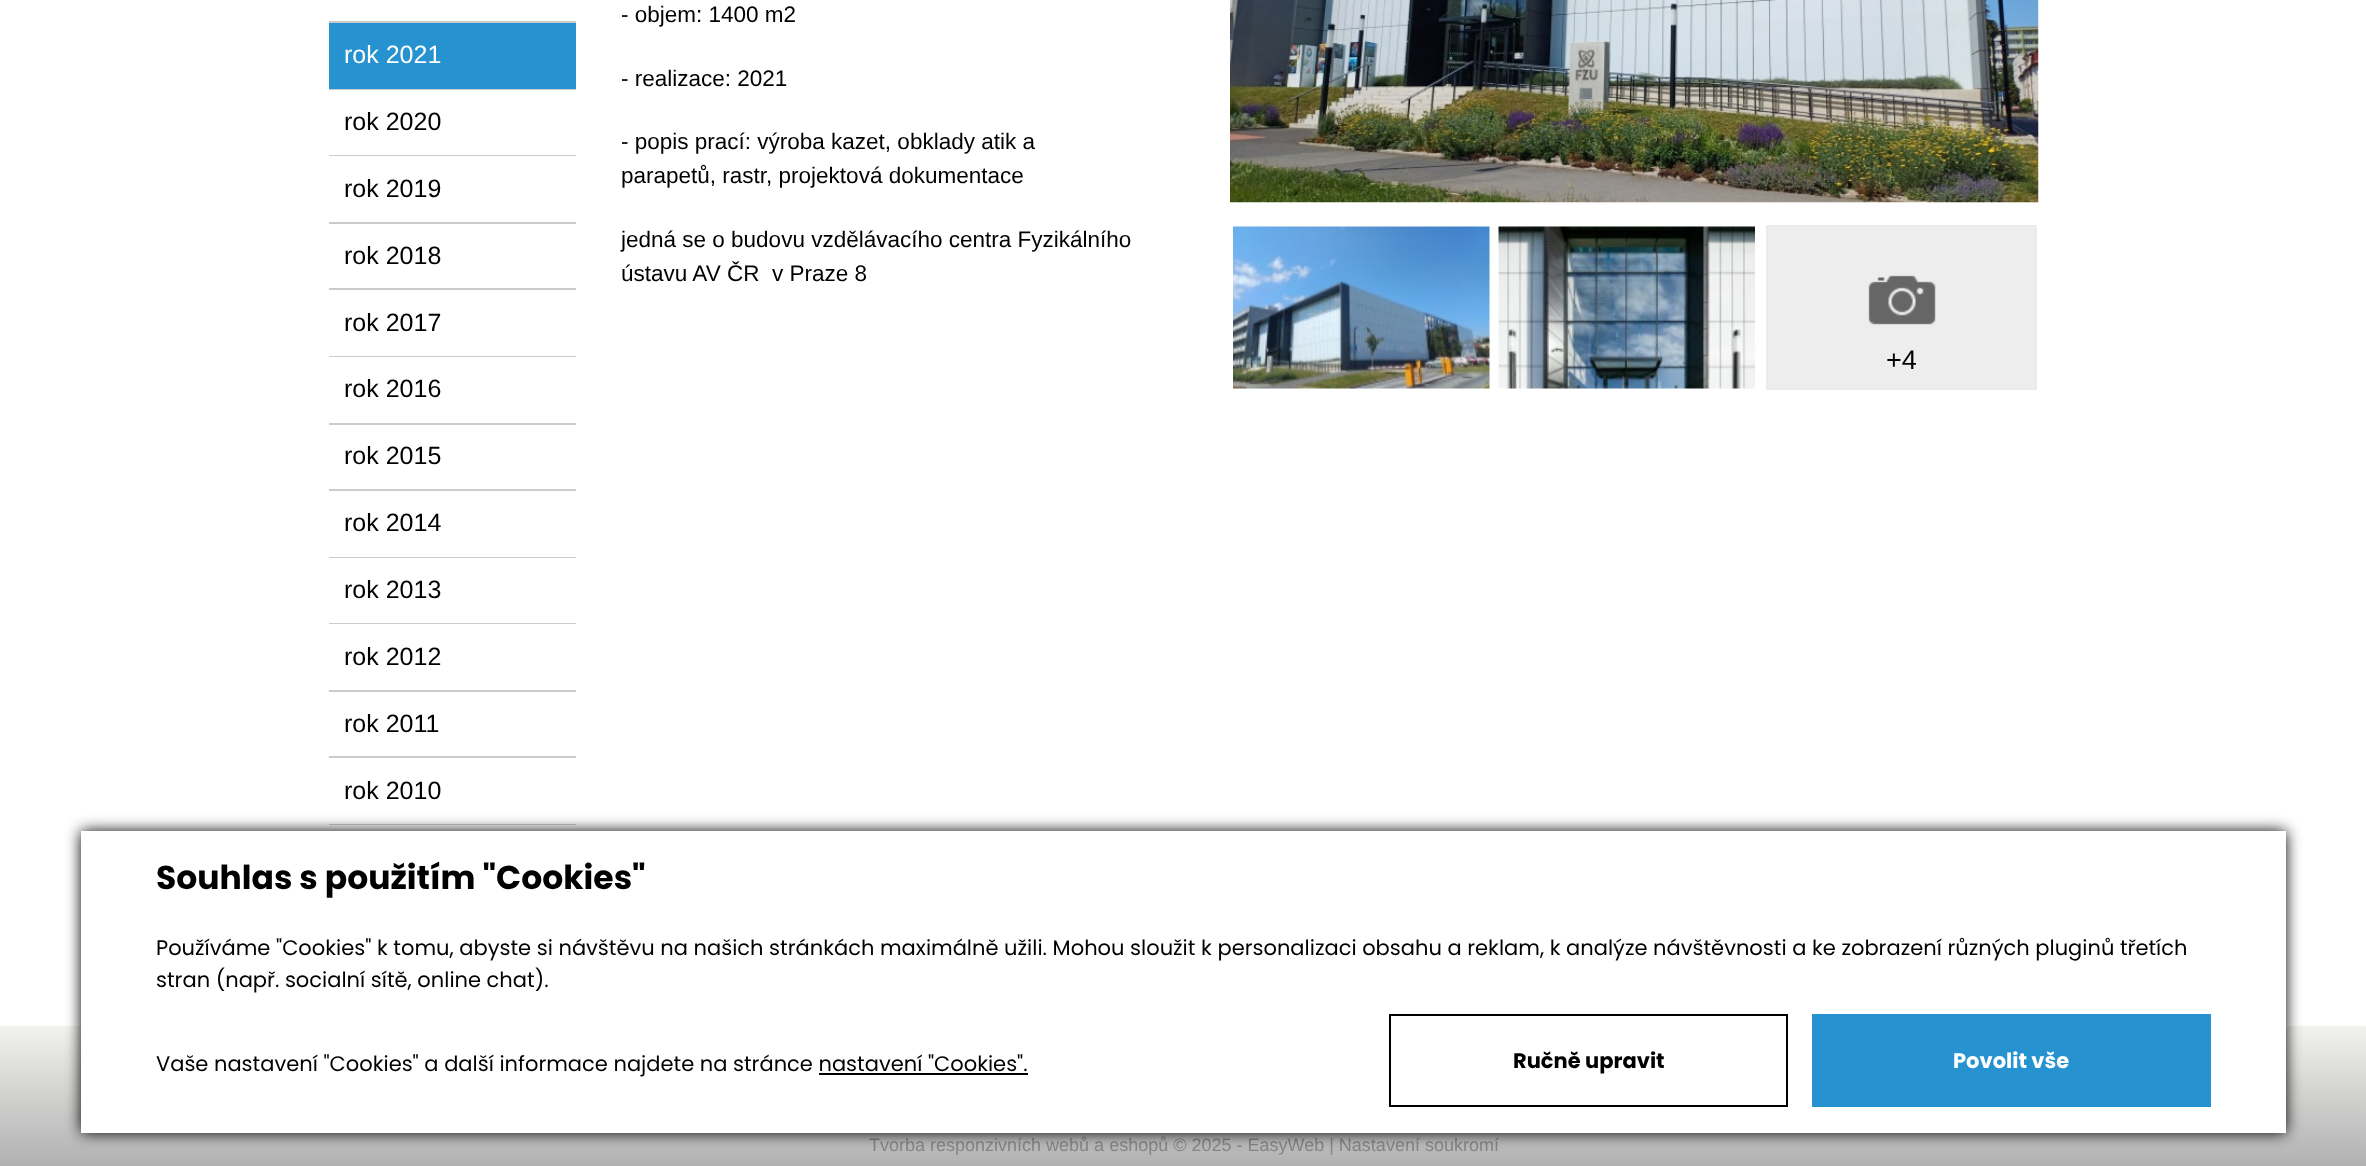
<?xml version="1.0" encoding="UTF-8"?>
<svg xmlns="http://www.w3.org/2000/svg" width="2366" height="1166">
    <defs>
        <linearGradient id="g1" gradientUnits="userSpaceOnUse" x1="1184" y1="1026" x2="1184" y2="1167"><stop offset="0" stop-color="#F2F2EE"/><stop offset="0.99" stop-color="#B1B1B2"/></linearGradient>
        <filter id="blur1" x="-50%" y="-200%" width="200%" height="500%"><feGaussianBlur stdDeviation="7.5"/></filter>
    </defs>
    <rect width="100%" height="100%" fill="#FFFFFF"/>
    <rect x="329" y="21" width="247" height="2" fill="#CCCCCC"/>
    <rect x="329" y="89" width="247" height="1" fill="#CCCCCC"/>
    <rect x="329" y="23" width="247" height="66" fill="#2693D0"/>
    <text x="344" y="63" font-family="Liberation Sans" font-size="25" fill="#FFFFFF">rok 2021</text>
    <rect x="329" y="155" width="247" height="1" fill="#CCCCCC"/>
    <text x="344" y="130" font-family="Liberation Sans" font-size="25" fill="#000000">rok 2020</text>
    <rect x="329" y="222" width="247" height="2" fill="#CCCCCC"/>
    <text x="344" y="197" font-family="Liberation Sans" font-size="25" fill="#000000">rok 2019</text>
    <rect x="329" y="288" width="247" height="2" fill="#CCCCCC"/>
    <text x="344" y="264" font-family="Liberation Sans" font-size="25" fill="#000000">rok 2018</text>
    <rect x="329" y="356" width="247" height="1" fill="#CCCCCC"/>
    <text x="344" y="331" font-family="Liberation Sans" font-size="25" fill="#000000">rok 2017</text>
    <rect x="329" y="423" width="247" height="2" fill="#CCCCCC"/>
    <text x="344" y="397" font-family="Liberation Sans" font-size="25" fill="#000000">rok 2016</text>
    <rect x="329" y="489" width="247" height="2" fill="#CCCCCC"/>
    <text x="344" y="464" font-family="Liberation Sans" font-size="25" fill="#000000">rok 2015</text>
    <rect x="329" y="557" width="247" height="1" fill="#CCCCCC"/>
    <text x="344" y="531" font-family="Liberation Sans" font-size="25" fill="#000000">rok 2014</text>
    <rect x="329" y="623" width="247" height="1" fill="#CCCCCC"/>
    <text x="344" y="598" font-family="Liberation Sans" font-size="25" fill="#000000">rok 2013</text>
    <rect x="329" y="690" width="247" height="2" fill="#CCCCCC"/>
    <text x="344" y="665" font-family="Liberation Sans" font-size="25" fill="#000000">rok 2012</text>
    <rect x="329" y="756" width="247" height="2" fill="#CCCCCC"/>
    <text x="344" y="732" font-family="Liberation Sans" font-size="25" fill="#000000">rok 2011</text>
    <rect x="329" y="824" width="247" height="1" fill="#CCCCCC"/>
    <text x="344" y="799" font-family="Liberation Sans" font-size="25" fill="#000000">rok 2010</text>
    <text x="621" y="22" font-family="Liberation Sans" font-size="22.5" fill="#000000">- objem: 1400 m2</text>
    <text x="621" y="86" font-family="Liberation Sans" font-size="22.5" fill="#000000">- realizace: 2021</text>
    <text font-family="Liberation Sans" font-size="22.5" fill="#000000">
        <tspan x="621" y="149">- popis prací: výroba kazet, obklady atik a</tspan>
        <tspan x="621" y="183">parapetů, rastr, projektová dokumentace</tspan>
    </text>
    <text font-family="Liberation Sans" font-size="22.5" fill="#000000" xml:space="preserve"><tspan x="621" y="247">jedná se o budovu vzdělávacího centra Fyzikálního</tspan><tspan x="621" y="281">ústavu AV ČR  v Praze 8</tspan></text>
    <image x="1230" y="0" width="809" height="203" href="img_01.png"/>
    <image x="1233" y="226" width="257" height="163" href="img_02.png"/>
    <image x="1498" y="226" width="257" height="163" href="img_03.png"/>
    <rect x="1768" y="227" width="267" height="161" fill="#EDEDED"/>
    <image x="1868" y="275" width="68" height="50" href="img_04.png"/>
    <rect x="1767" y="226" width="269" height="163" fill="none" stroke="#EBEBEB" stroke-width="2"/>
    <text x="1886" y="369" font-family="Liberation Sans" font-size="27" fill="#000000">+4</text>
    <rect x="0" y="1026" width="2366" height="140" fill="url(#g1)"/>
    <text x="869" y="1151" font-family="Liberation Sans" font-size="18" fill="#868686">Tvorba responzivních webů a eshopů © 2025 - EasyWeb | Nastavení soukromí</text>
    <rect x="81" y="831" width="2205" height="302" fill="#000000" filter="url(#blur1)"/>
    <rect x="81" y="831" width="2205" height="302" fill="#FFFFFF"/>
    <text x="156" y="889" font-family="Poppins" font-size="33" font-weight="700" fill="#000000">Souhlas s použitím "Cookies"</text>
    <text font-family="Poppins" font-size="21" fill="#000000">
        <tspan x="156" y="955">Používáme "Cookies" k tomu, abyste si návštěvu na našich stránkách maximálně užili. Mohou sloužit k personalizaci obsahu a reklam, k analýze návštěvnosti a ke zobrazení různých pluginů třetích</tspan>
        <tspan x="156" y="987">stran (např. socialní sítě, online chat).</tspan>
    </text>
    <text x="156" y="1071" font-family="Poppins" font-size="21" fill="#000000">Vaše nastavení "Cookies" a další informace najdete na stránce nastavení "Cookies".</text>
    <rect x="819" y="1073" width="209" height="2" fill="#000000"/>
    <rect x="1390" y="1015" width="397" height="91" fill="none" stroke="#000000" stroke-width="2"/>
    <text x="1513" y="1068" font-family="Poppins" font-size="21" font-weight="700" fill="#000000">Ručně upravit</text>
    <rect x="1812" y="1014" width="399" height="93" fill="#2693D0"/>
    <text x="1953" y="1068" font-family="Poppins" font-size="21" font-weight="700" fill="#FFFFFF">Povolit vše</text>
</svg>
